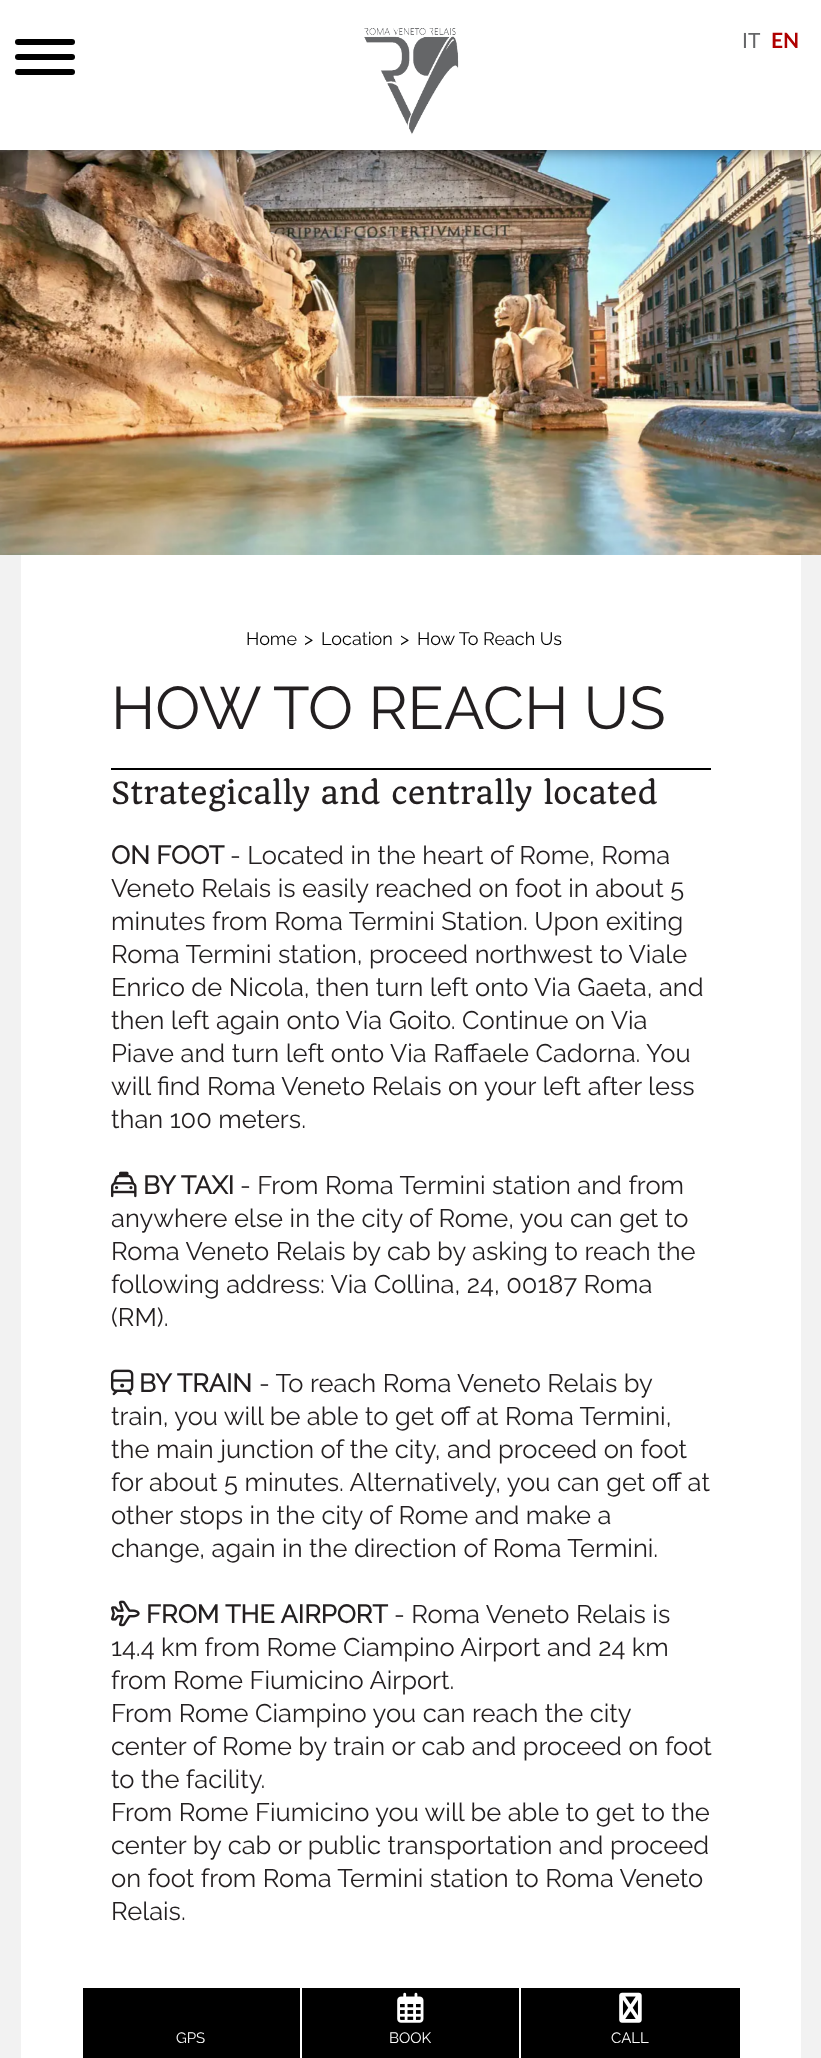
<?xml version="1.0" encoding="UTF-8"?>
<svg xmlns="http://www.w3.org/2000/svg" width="821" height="2058">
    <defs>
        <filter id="blur1" x="-50%" y="-200%" width="200%" height="500%"><feGaussianBlur stdDeviation="7.5"/></filter>
    </defs>
    <rect width="100%" height="100%" fill="#FFFFFF"/>
    <image x="0" y="150" width="821" height="405" href="img_02.png"/>
    <rect x="15" y="0" width="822" height="150" fill="#000000" fill-opacity="0.5" filter="url(#blur1)"/>
    <rect x="0" y="0" width="821" height="150" fill="#FFFFFF"/>
    <rect x="15" y="39" width="60" height="6" rx="3" fill="#000000"/>
    <rect x="15" y="54" width="60" height="6" rx="3" fill="#000000"/>
    <rect x="15" y="69" width="60" height="6" rx="3" fill="#000000"/>
    <image x="364" y="28" width="95" height="107" href="img_01.png"/>
    <text x="742" y="48" font-family="Lato" font-size="21" fill="#656668">IT</text>
    <text x="771" y="48" font-family="Lato" font-size="21" font-weight="700" fill="#AF0000">EN</text>
    <image x="0" y="554" width="821" height="1" href="img_03.png"/>
    <rect x="0" y="555" width="821" height="1503" fill="#F2F2F2"/>
    <rect x="21" y="555" width="780" height="1503" fill="#FFFFFF"/>
    <text x="246" y="645" font-family="Raleway" font-size="18" font-weight="100" fill="#000000">Home</text>
    <text x="304" y="645" font-family="Raleway" font-size="18" font-weight="100" fill="#000000">&gt;</text>
    <text x="321" y="645" font-family="Raleway" font-size="18" font-weight="100" fill="#000000">Location</text>
    <text x="400" y="645" font-family="Raleway" font-size="18" font-weight="100" fill="#000000">&gt;</text>
    <text x="417" y="645" font-family="Raleway" font-size="18" font-weight="100" fill="#000000">How To Reach Us</text>
    <rect x="111" y="768" width="600" height="2" fill="#000000"/>
    <text x="111" y="729" font-family="Raleway" font-size="60" font-weight="100" fill="#231F20">HOW TO REACH US</text>
    <text x="111" y="804" font-family="Quando" font-size="30" fill="#231F20">Strategically and centrally located</text>
    <text x="111" y="864" font-family="Raleway" font-size="25.5" font-weight="700" fill="#231F20">ON FOOT</text>
    <text x="230" y="864" font-family="Raleway" font-size="25.5" font-weight="100" fill="#231F20">- Located in the heart of Rome, Roma</text>
    <text font-family="Raleway" font-size="25.5" font-weight="100" fill="#231F20">
        <tspan x="111" y="897">Veneto Relais is easily reached on foot in about 5</tspan>
        <tspan x="111" y="930">minutes from Roma Termini Station. Upon exiting</tspan>
        <tspan x="111" y="963">Roma Termini station, proceed northwest to Viale</tspan>
        <tspan x="111" y="996">Enrico de Nicola, then turn left onto Via Gaeta, and</tspan>
        <tspan x="111" y="1029">then left again onto Via Goito. Continue on Via</tspan>
        <tspan x="111" y="1062">Piave and turn left onto Via Raffaele Cadorna. You</tspan>
        <tspan x="111" y="1095">will find Roma Veneto Relais on your left after less</tspan>
        <tspan x="111" y="1128">than 100 meters.</tspan>
    </text>
    <image x="111" y="1171" width="26" height="27" href="img_04.png"/>
    <text x="143" y="1194" font-family="Raleway" font-size="25.5" font-weight="700" fill="#231F20">BY TAXI</text>
    <text x="240" y="1194" font-family="Raleway" font-size="25.5" font-weight="100" fill="#231F20">- From Roma Termini station and from</text>
    <text font-family="Raleway" font-size="25.5" font-weight="100" fill="#231F20">
        <tspan x="111" y="1227">anywhere else in the city of Rome, you can get to</tspan>
        <tspan x="111" y="1260">Roma Veneto Relais by cab by asking to reach the</tspan>
        <tspan x="111" y="1293">following address: Via Collina, 24, 00187 Roma</tspan>
        <tspan x="111" y="1326">(RM).</tspan>
    </text>
    <image x="111" y="1369" width="23" height="27" href="img_05.png"/>
    <text x="139" y="1392" font-family="Raleway" font-size="25.5" font-weight="700" fill="#231F20">BY TRAIN</text>
    <text x="259" y="1392" font-family="Raleway" font-size="25.5" font-weight="100" fill="#231F20">- To reach Roma Veneto Relais by</text>
    <text font-family="Raleway" font-size="25.5" font-weight="100" fill="#231F20">
        <tspan x="111" y="1425">train, you will be able to get off at Roma Termini,</tspan>
        <tspan x="111" y="1458">the main junction of the city, and proceed on foot</tspan>
        <tspan x="111" y="1491">for about 5 minutes. Alternatively, you can get off at</tspan>
        <tspan x="111" y="1524">other stops in the city of Rome and make a</tspan>
        <tspan x="111" y="1557">change, again in the direction of Roma Termini.</tspan>
    </text>
    <image x="111" y="1600" width="29" height="27" href="img_06.png"/>
    <text x="146" y="1623" font-family="Raleway" font-size="25.5" font-weight="700" fill="#231F20">FROM THE AIRPORT</text>
    <text x="394" y="1623" font-family="Raleway" font-size="25.5" font-weight="100" fill="#231F20">- Roma Veneto Relais is</text>
    <text font-family="Raleway" font-size="25.5" font-weight="100" fill="#231F20">
        <tspan x="111" y="1656">14.4 km from Rome Ciampino Airport and 24 km</tspan>
        <tspan x="111" y="1689">from Rome Fiumicino Airport.</tspan>
        <tspan x="111" y="1722">From Rome Ciampino you can reach the city</tspan>
        <tspan x="111" y="1755">center of Rome by train or cab and proceed on foot</tspan>
        <tspan x="111" y="1788">to the facility.</tspan>
        <tspan x="111" y="1821">From Rome Fiumicino you will be able to get to the</tspan>
        <tspan x="111" y="1854">center by cab or public transportation and proceed</tspan>
        <tspan x="111" y="1887">on foot from Roma Termini station to Roma Veneto</tspan>
        <tspan x="111" y="1920">Relais.</tspan>
    </text>
    <rect x="83" y="1988" width="657" height="70" fill="#000000"/>
    <rect x="300" y="1988" width="2" height="70" fill="#FFFFFF"/>
    <text x="176" y="2043" font-family="Raleway" font-size="15" font-weight="100" fill="#FFFFFF">GPS</text>
    <rect x="519" y="1988" width="2" height="70" fill="#FFFFFF"/>
    <image x="397" y="1992" width="27" height="31" href="img_07.png"/>
    <text x="389" y="2043" font-family="Raleway" font-size="15" font-weight="100" fill="#FFFFFF">BOOK</text>
    <image x="619" y="1992" width="23" height="31" href="img_08.png"/>
    <text x="611" y="2043" font-family="Raleway" font-size="15" font-weight="100" fill="#FFFFFF">CALL</text>
</svg>
